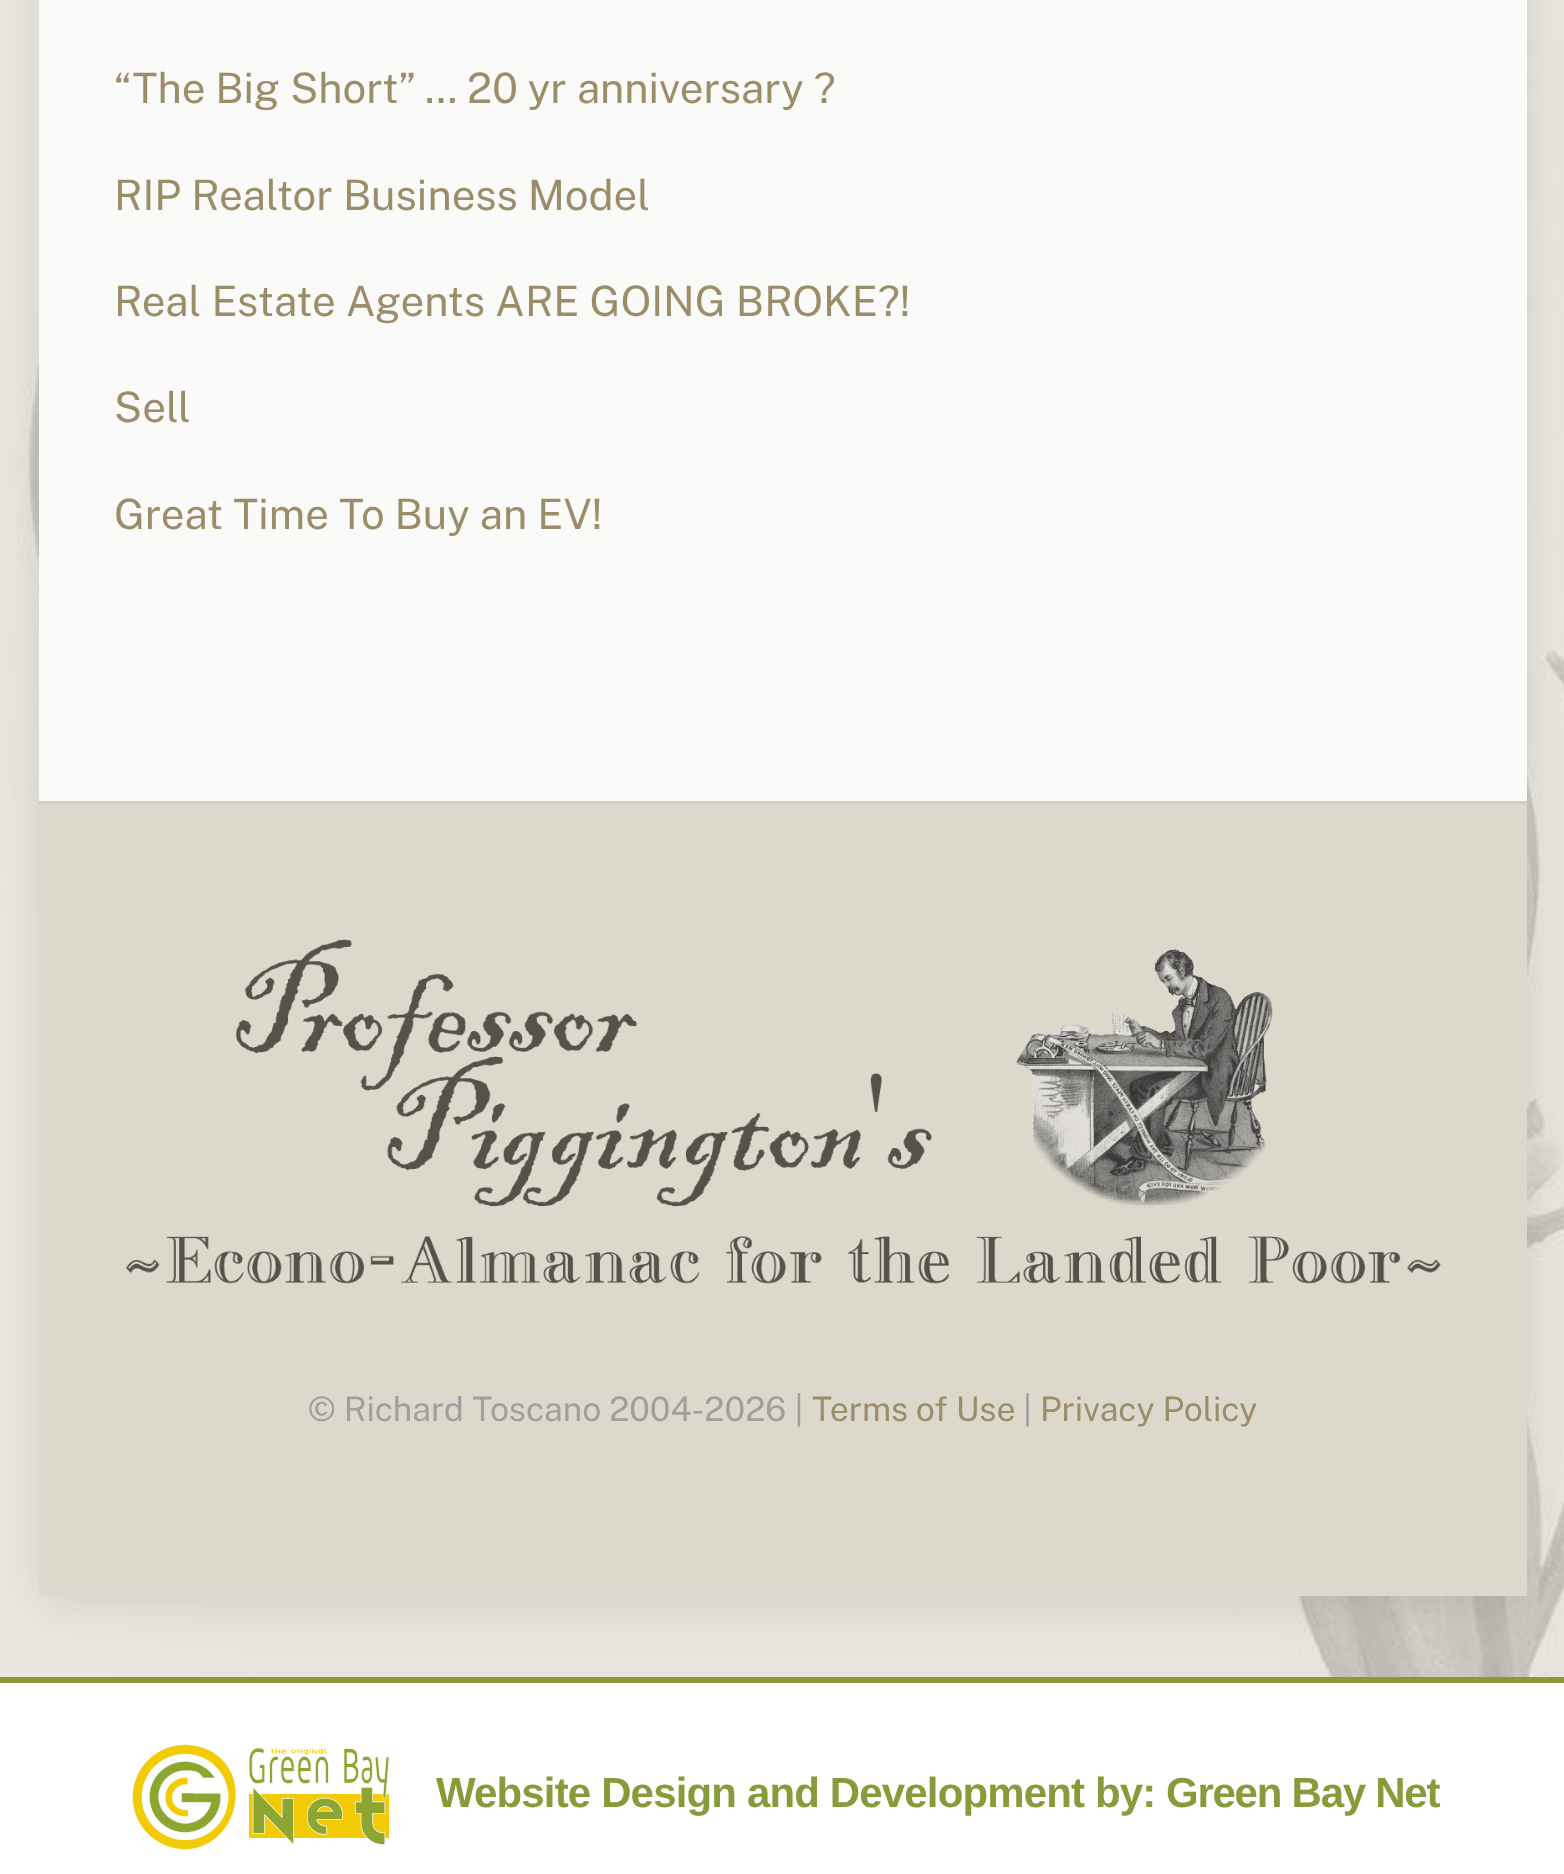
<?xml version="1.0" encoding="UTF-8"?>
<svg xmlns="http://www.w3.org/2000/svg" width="1564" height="1874">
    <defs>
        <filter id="blur1" x="-50%" y="-200%" width="200%" height="500%"><feGaussianBlur stdDeviation="24"/></filter>
    </defs>
    <rect width="100%" height="100%" fill="#FFFFFF"/>
    <image x="0" y="0" width="1564" height="1677" href="img_01.png"/>
    <rect x="0" y="1677" width="1564" height="6" fill="#879B3A"/>
    <rect x="39" y="-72" width="1488" height="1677" fill="#000000" fill-opacity="0.1" filter="url(#blur1)"/>
    <rect x="39" y="0" width="1488" height="801" fill="#FAFAF8"/>
    <text x="114" y="103" font-family="Public Sans" font-size="42" fill="#9C8D6A">“The Big Short” … 20 yr anniversary ?</text>
    <text x="114" y="210" font-family="Public Sans" font-size="42" fill="#9C8D6A">RIP Realtor Business Model</text>
    <text x="114" y="316" font-family="Public Sans" font-size="42" fill="#9C8D6A">Real Estate Agents ARE GOING BROKE?!</text>
    <text x="114" y="422" font-family="Public Sans" font-size="42" fill="#9C8D6A">Sell</text>
    <text x="114" y="529" font-family="Public Sans" font-size="42" fill="#9C8D6A">Great Time To Buy an EV!</text>
    <rect x="39" y="804" width="1488" height="792" fill="#DDD8CC"/>
    <rect x="39" y="801" width="1488" height="3" fill="#D2CDC2"/>
    <image x="125" y="939" width="1316" height="345" href="img_02.png"/>
    <text x="308" y="1421" font-family="Public Sans" font-size="33.75" fill="#9F9F9F">© Richard Toscano 2004-2026 |</text>
    <text x="812" y="1421" font-family="Public Sans" font-size="33.75" fill="#9C8D6A">Terms of Use</text>
    <text x="1023" y="1421" font-family="Public Sans" font-size="33.75" fill="#9F9F9F">|</text>
    <text x="1040" y="1421" font-family="Public Sans" font-size="33.75" fill="#9C8D6A">Privacy Policy</text>
    <image x="132" y="1744" width="258" height="106" href="img_03.png"/>
    <text x="436" y="1807" font-family="Liberation Sans" font-size="42" font-weight="700" letter-spacing="-0.85" fill="#879B3A">Website Design and Development by:</text>
    <text x="1166" y="1807" font-family="Liberation Sans" font-size="42" font-weight="700" letter-spacing="-1.25" fill="#879B3A">Green Bay Net</text>
</svg>
